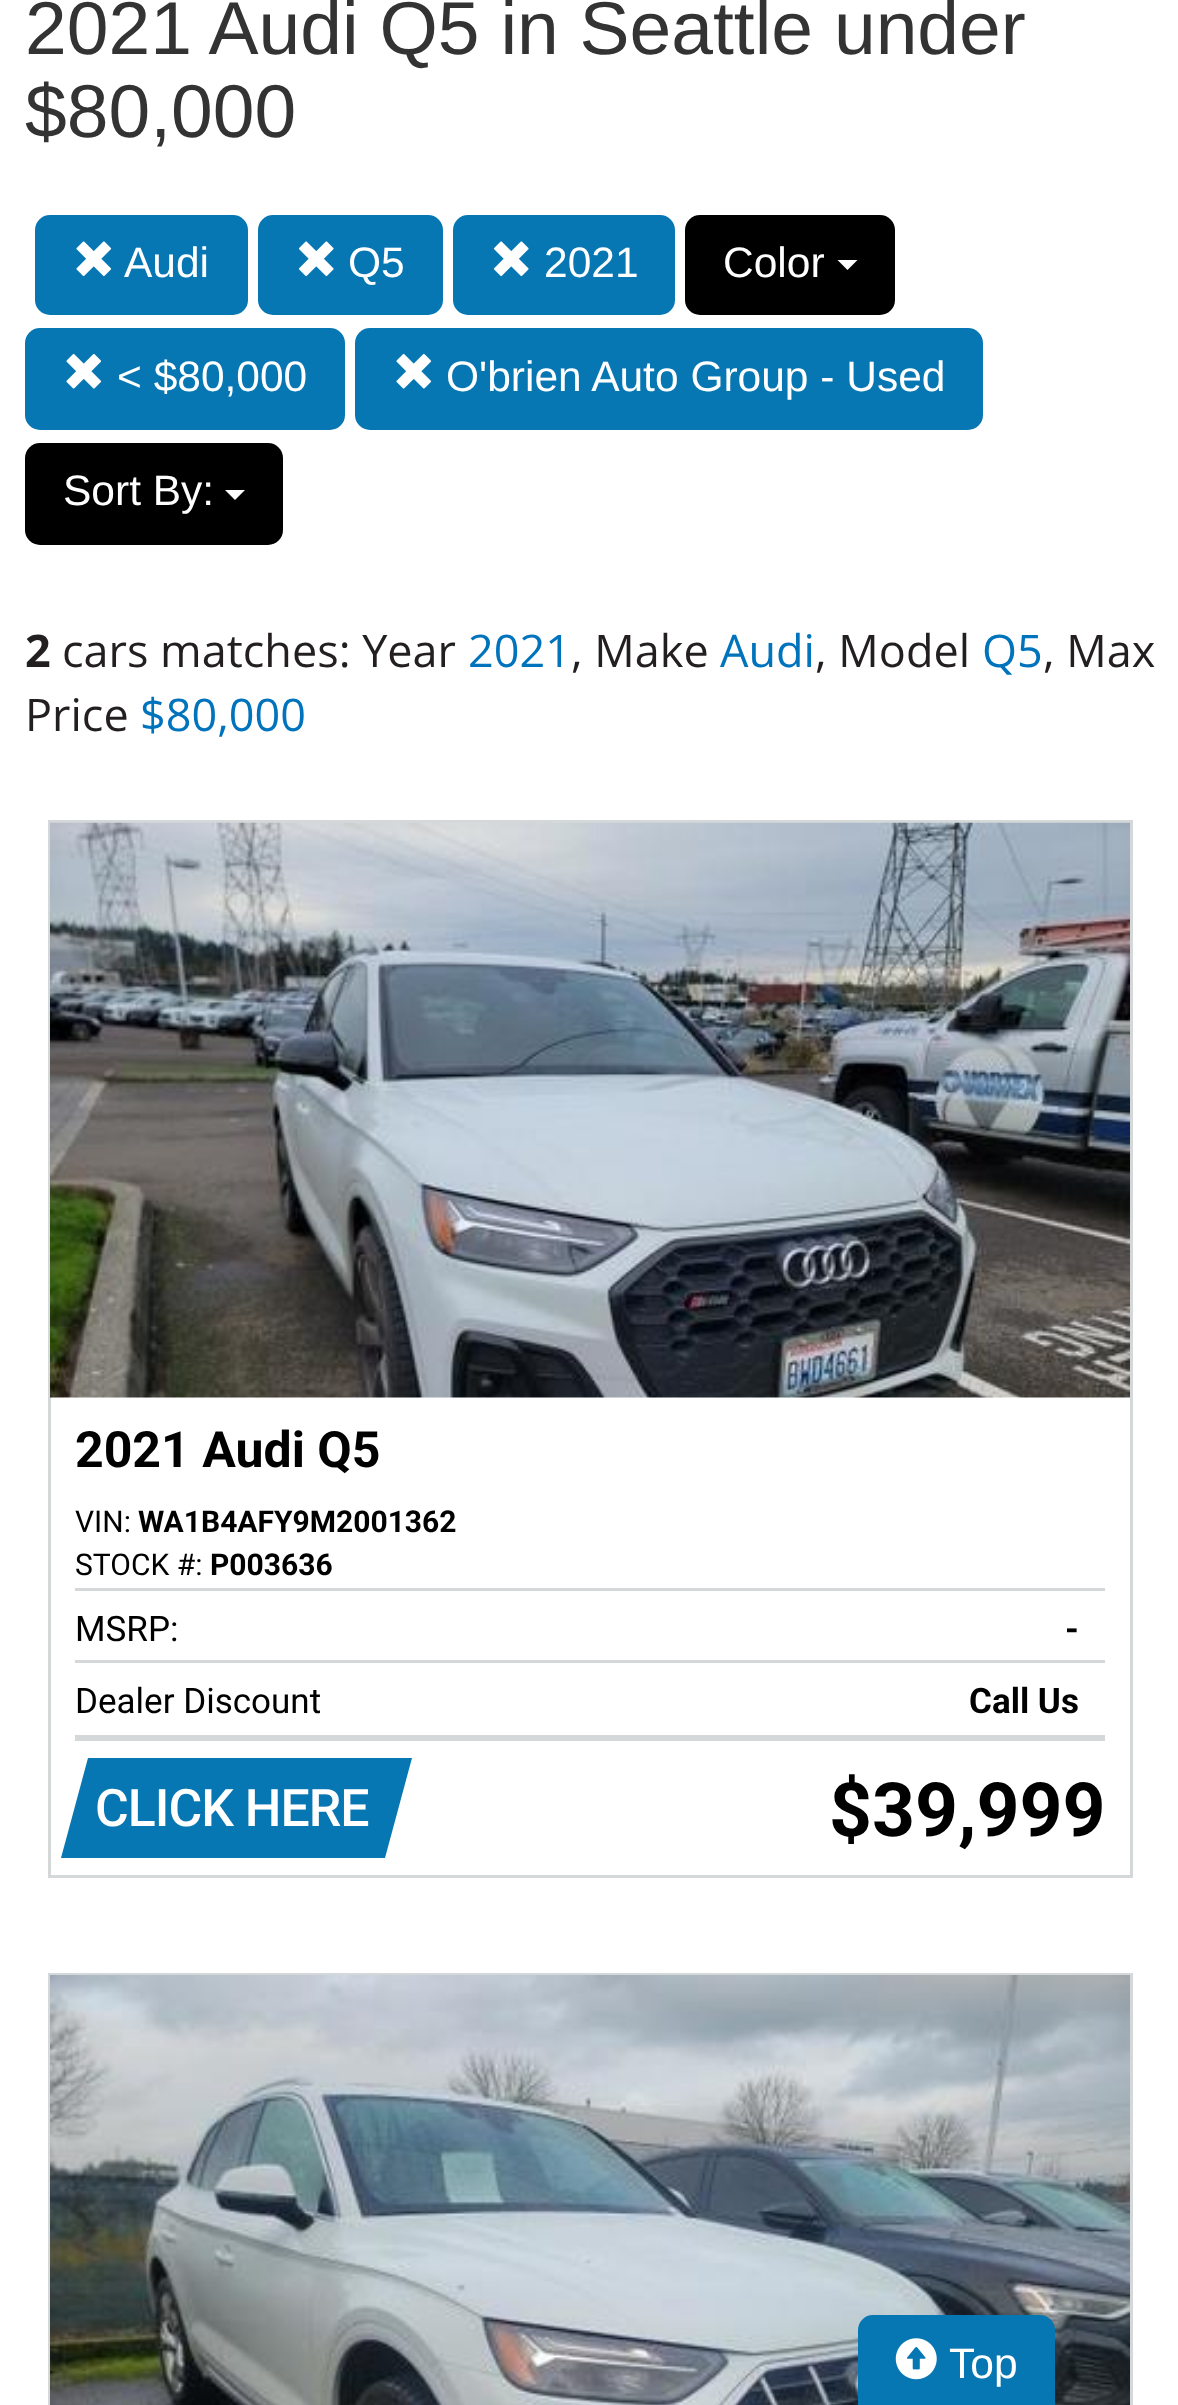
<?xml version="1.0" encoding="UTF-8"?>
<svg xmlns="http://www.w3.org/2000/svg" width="1178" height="2405">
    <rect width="100%" height="100%" fill="#FFFFFF"/>
    <text font-family="Liberation Sans" font-size="75" fill="#333333">
        <tspan x="25" y="54">2021 Audi Q5 in Seattle under</tspan>
        <tspan x="25" y="137">$80,000</tspan>
    </text>
    <rect x="35" y="215" width="213" height="100" rx="15" fill="#0777B3"/>
    <image x="76" y="241" width="36" height="36" href="img_01.png"/>
    <text x="124" y="277" font-family="Liberation Sans" font-size="42.5" fill="#FFFFFF">Audi</text>
    <rect x="258" y="215" width="185" height="100" rx="15" fill="#0777B3"/>
    <image x="298" y="241" width="36" height="36" href="img_02.png"/>
    <text x="348" y="277" font-family="Liberation Sans" font-size="42.5" fill="#FFFFFF">Q5</text>
    <rect x="453" y="215" width="222" height="100" rx="15" fill="#0777B3"/>
    <image x="493" y="241" width="36" height="36" href="img_02.png"/>
    <text x="544" y="277" font-family="Liberation Sans" font-size="42.5" fill="#FFFFFF">2021</text>
    <rect x="685" y="215" width="210" height="100" rx="15" fill="#000000"/>
    <text x="723" y="277" font-family="Liberation Sans" font-size="42.5" fill="#FFFFFF">Color</text>
    <path d="M 837.5 260 H 857.5 L 847.5 270 Z" fill="#FFFFFF"/>
    <rect x="25" y="328" width="320" height="102" rx="15" fill="#0777B3"/>
    <image x="66" y="353" width="36" height="36" href="img_03.png"/>
    <text x="117" y="391" font-family="Liberation Sans" font-size="42.5" fill="#FFFFFF">&lt; $80,000</text>
    <rect x="355" y="328" width="628" height="102" rx="15" fill="#0777B3"/>
    <image x="396" y="353" width="36" height="36" href="img_03.png"/>
    <text x="446" y="391" font-family="Liberation Sans" font-size="42.5" fill="#FFFFFF">O'brien Auto Group - Used</text>
    <rect x="25" y="443" width="258" height="102" rx="15" fill="#000000"/>
    <text x="63" y="505" font-family="Liberation Sans" font-size="42.5" fill="#FFFFFF">Sort By:</text>
    <path d="M 225 490 H 245 L 235 500 Z" fill="#FFFFFF"/>
    <text x="25" y="667" font-family="Open Sans" font-size="45" font-weight="700" fill="#231F20">2</text>
    <text x="62" y="667" font-family="Open Sans" font-size="45" fill="#231F20">cars matches: Year</text>
    <text x="468" y="667" font-family="Open Sans" font-size="45" fill="#0073BD">2021</text>
    <text x="571" y="667" font-family="Open Sans" font-size="45" fill="#231F20">, Make</text>
    <text x="720" y="667" font-family="Open Sans" font-size="45" fill="#0073BD">Audi</text>
    <text x="815" y="667" font-family="Open Sans" font-size="45" fill="#231F20">, Model</text>
    <text x="982" y="667" font-family="Open Sans" font-size="45" fill="#0073BD">Q5</text>
    <text x="1043" y="667" font-family="Open Sans" font-size="45" fill="#231F20">, Max</text>
    <text x="25" y="731" font-family="Open Sans" font-size="45" fill="#231F20">Price</text>
    <text x="140" y="731" font-family="Open Sans" font-size="45" fill="#0073BD">$80,000</text>
    <rect x="49.5" y="821.5" width="1082" height="1055" fill="none" stroke="#D4D8D9" stroke-width="3"/>
    <image x="50" y="822" width="1080" height="576" href="img_04.png"/>
    <text x="75" y="1467" font-family="Roboto" font-size="50" font-weight="700" fill="#000000">2021 Audi Q5</text>
    <text x="75" y="1532" font-family="Roboto" font-size="30" fill="#000000">VIN:</text>
    <text x="138" y="1532" font-family="Roboto" font-size="30" font-weight="700" fill="#000000">WA1B4AFY9M2001362</text>
    <text x="75" y="1575" font-family="Roboto" font-size="30" fill="#000000">STOCK #:</text>
    <text x="210" y="1575" font-family="Roboto" font-size="30" font-weight="700" fill="#000000">P003636</text>
    <rect x="75" y="1588" width="1030" height="3" fill="#D4D8D9"/>
    <rect x="75" y="1660" width="1030" height="3" fill="#D4D8D9"/>
    <text x="75" y="1641" font-family="Roboto" font-size="35" fill="#000000">MSRP:</text>
    <text x="1065" y="1641" font-family="Roboto" font-size="35" font-weight="700" fill="#000000">-</text>
    <rect x="75" y="1735" width="1030" height="6" fill="#D4D8D9"/>
    <text x="75" y="1713" font-family="Roboto" font-size="35" fill="#000000">Dealer Discount</text>
    <text x="969" y="1713" font-family="Roboto" font-size="35" font-weight="700" fill="#000000">Call Us</text>
    <path d="M 88 1758 H 412 L 385 1858 H 61 Z" fill="#0777B3"/>
    <text x="95" y="1826" font-family="Roboto" font-size="51.75" font-weight="500" letter-spacing="-1" fill="#FFFFFF">CLICK HERE</text>
    <text x="829" y="1836" font-family="Roboto" font-size="75" font-weight="700" fill="#000000">$39,999</text>
    <rect x="49.5" y="1974.5" width="1082" height="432" fill="none" stroke="#D4D8D9" stroke-width="3"/>
    <image x="50" y="1975" width="1080" height="430" href="img_05.png"/>
    <rect x="859.5" y="2316.5" width="194" height="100" rx="13.5" fill="#0777B3" stroke="#0777B3" stroke-width="3"/>
    <image x="895" y="2338" width="42" height="42" href="img_06.png"/>
    <text x="949" y="2378" font-family="Liberation Sans" font-size="42.5" fill="#FFFFFF">Top</text>
</svg>
